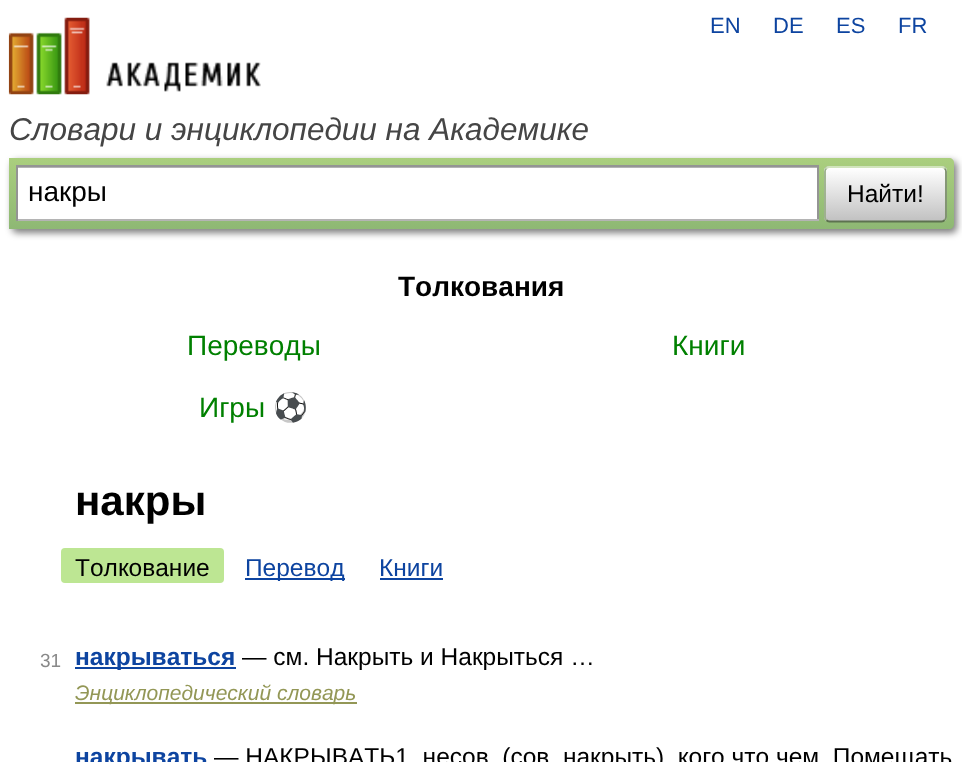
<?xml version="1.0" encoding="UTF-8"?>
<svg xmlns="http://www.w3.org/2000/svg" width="962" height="762">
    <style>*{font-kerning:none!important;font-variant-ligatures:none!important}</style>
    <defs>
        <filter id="blur1" x="-50%" y="-200%" width="200%" height="500%"><feGaussianBlur stdDeviation="3.5"/></filter>
        <linearGradient id="g1" gradientUnits="userSpaceOnUse" x1="481" y1="157" x2="481" y2="229"><stop offset="0" stop-color="#ABCF7E"/><stop offset="1" stop-color="#8EB874"/></linearGradient>
        <clipPath id="clip1"><rect x="824" y="166" width="123" height="56" rx="5"/></clipPath>
        <linearGradient id="g2" gradientUnits="userSpaceOnUse" x1="886" y1="116" x2="886" y2="168"><stop offset="0" stop-color="#FFFFFF"/><stop offset="1" stop-color="#C1C1C1"/></linearGradient>
        <linearGradient id="g3" gradientUnits="userSpaceOnUse" x1="886" y1="168" x2="886" y2="221"><stop offset="0" stop-color="#FFFFFF"/><stop offset="1" stop-color="#C1C1C1"/></linearGradient>
    </defs>
    <rect width="100%" height="100%" fill="#FFFFFF"/>
    <image x="8" y="17" width="253" height="78" href="img_01.png"/>
    <text x="710" y="33" font-family="Liberation Sans" font-size="22" fill="#0D44A0">EN</text>
    <text x="773" y="33" font-family="Liberation Sans" font-size="22" fill="#0D44A0">DE</text>
    <text x="836" y="33" font-family="Liberation Sans" font-size="22" fill="#0D44A0">ES</text>
    <text x="898" y="33" font-family="Liberation Sans" font-size="22" fill="#0D44A0">FR</text>
    <text x="9" y="140" font-family="Liberation Sans" font-size="31.5" font-style="italic" fill="#454545">Словари и энциклопедии на Академике</text>
    <rect x="12" y="161" width="945" height="72" rx="5" fill="#000000" fill-opacity="0.5" filter="url(#blur1)"/>
    <path d="M 9 158 H 949 C 952 158 954 160 954 163 V 224 C 954 227 952 229 949 229 H 9 Z" fill="url(#g1)"/>
    <rect x="18" y="168" width="799" height="51" fill="#FFFFFF"/>
    <rect x="18" y="167" width="799" height="1" fill="#B3B3B3"/>
    <rect x="16" y="165" width="803" height="2" fill="#949494"/>
    <rect x="817" y="165" width="2" height="56" fill="#949494"/>
    <rect x="16" y="219" width="803" height="2" fill="#B4B4B4"/>
    <rect x="16" y="165" width="2" height="56" fill="#949494"/>
    <text x="28" y="201" font-family="Liberation Sans" font-size="28" fill="#000000">накры</text>
    <g clip-path="url(#clip1)">
        <rect x="824" y="166" width="123" height="2" fill="url(#g2)"/>
        <rect x="824" y="168" width="123" height="53" fill="url(#g3)"/>
    </g>
    <path d="M 826.5 168.5 C 827 167.5 828.5 167 829.5 167 H 941.5 C 942.5 167 944 167.5 944.5 168.5" fill="none" stroke="#D1E4BC" stroke-width="1.8"/>
    <path d="M 944.5 168.5 C 945.5 169 946 170.5 946 171.5 V 217 C 946 218 945.5 219.5 944.5 220" fill="none" stroke="#7A8E69" stroke-width="1.8"/>
    <path d="M 944.5 220 C 944 221 942.5 221.5 941.5 221.5 H 829.5 C 828.5 221.5 827 221 826.5 220" fill="none" stroke="#5D7250" stroke-width="1.8"/>
    <path d="M 826.5 220 C 825.5 219.5 825 218 825 217 V 171.5 C 825 170.5 825.5 169 826.5 168.5" fill="none" stroke="#9AAE89" stroke-width="1.8"/>
    <text x="847" y="202" font-family="Liberation Sans" font-size="24.5" fill="#000000">Найти!</text>
    <text x="398" y="296" font-family="Liberation Sans" font-size="28" font-weight="700" fill="#000000">Толкования</text>
    <text x="187" y="355" font-family="Liberation Sans" font-size="28" fill="#008000">Переводы</text>
    <text x="672" y="355" font-family="Liberation Sans" font-size="28" fill="#008000">Книги</text>
    <text x="199" y="417" font-family="Liberation Sans" font-size="28" fill="#008000">Игры</text>
    <text x="273" y="417" font-family="Noto Color Emoji" font-size="28" fill="#008000">⚽</text>
    <text x="75" y="515" font-family="Liberation Sans" font-size="42" font-weight="700" fill="#000000">накры</text>
    <rect x="61" y="548" width="163" height="35" rx="4" fill="#BDE693"/>
    <text x="75" y="576" font-family="Liberation Sans" font-size="24.5" fill="#000000">Толкование</text>
    <rect x="245" y="578" width="100" height="2" fill="#0D44A0"/>
    <text x="245" y="576" font-family="Liberation Sans" font-size="24.5" fill="#0D44A0">Перевод</text>
    <text x="379" y="576" font-family="Liberation Sans" font-size="24.5" fill="#0D44A0">Книги</text>
    <rect x="380" y="578" width="63" height="2" fill="#0D44A0"/>
    <text x="40" y="667" font-family="Liberation Sans" font-size="19" fill="#898989">31</text>
    <rect x="75" y="667" width="161" height="2" fill="#0D44A0"/>
    <text x="75" y="665" font-family="Liberation Sans" font-size="24.5" font-weight="700" fill="#0D44A0">накрываться</text>
    <text x="242" y="665" font-family="Liberation Sans" font-size="24.5" fill="#000000">— см. Накрыть и Накрыться …</text>
    <rect x="75" y="702" width="282" height="2" fill="#939756"/>
    <text x="75" y="700" font-family="Liberation Sans" font-size="21" font-style="italic" fill="#939756">Энциклопедический словарь</text>
    <text x="75" y="765" font-family="Liberation Sans" font-size="24.5" font-weight="700" fill="#0D44A0">накрывать</text>
    <text x="214" y="765" font-family="Liberation Sans" font-size="24.5" fill="#000000">— НАКРЫВАТЬ1, несов. (сов. накрыть), кого что чем. Помещать</text>
</svg>
